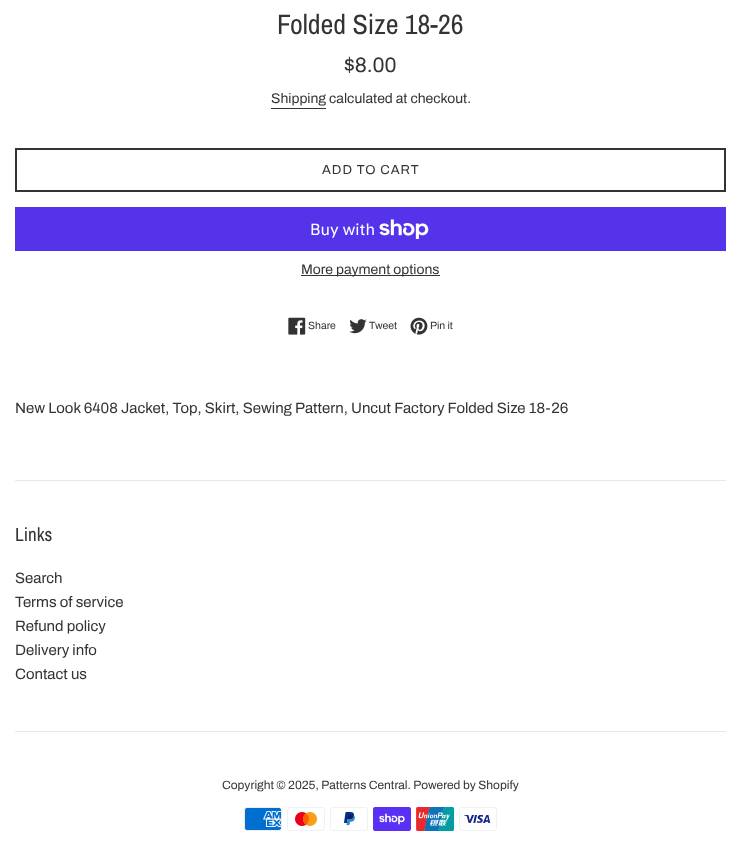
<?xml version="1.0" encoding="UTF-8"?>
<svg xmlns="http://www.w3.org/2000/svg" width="741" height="861">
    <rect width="100%" height="100%" fill="#FFFFFF"/>
    <text x="277" y="34" font-family="Archivo Narrow" font-size="28" fill="#333333">Folded Size 18-26</text>
    <text x="344" y="72" font-family="Archivo" font-size="21" fill="#333333">$8.00</text>
    <text x="271" y="103" font-family="Archivo" font-size="14" fill="#333333">Shipping calculated at checkout.</text>
    <rect x="271" y="108" width="55" height="1" fill="#333333"/>
    <rect x="16" y="149" width="709" height="42" fill="none" stroke="#333333" stroke-width="2"/>
    <text x="322" y="174" font-family="Archivo" font-size="13" letter-spacing="1" fill="#333333">ADD TO CART</text>
    <rect x="15" y="207" width="711" height="44" fill="#5433EB"/>
    <text x="310" y="235" font-family="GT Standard" font-size="16" fill="#FFFFFF">Buy with</text>
    <image x="379" y="219" width="50" height="20" href="img_01.png"/>
    <rect x="301" y="275" width="139" height="1" fill="#333333"/>
    <text x="301" y="274" font-family="Archivo" font-size="14" fill="#333333">More payment options</text>
    <image x="288" y="317" width="18" height="18" href="img_02.png"/>
    <text x="308" y="329" font-family="Archivo" font-size="10.5" fill="#333333">Share</text>
    <image x="349" y="319" width="18" height="15" href="img_03.png"/>
    <text x="369" y="329" font-family="Archivo" font-size="10.5" fill="#333333">Tweet</text>
    <image x="410" y="317" width="18" height="18" href="img_04.png"/>
    <text x="430" y="329" font-family="Archivo" font-size="10.5" fill="#333333">Pin it</text>
    <text x="15" y="413" font-family="Archivo" font-size="15" fill="#333333">New Look 6408 Jacket, Top, Skirt, Sewing Pattern, Uncut Factory Folded Size 18-26</text>
    <rect x="15" y="480" width="711" height="1" fill="#E8E8E8"/>
    <text x="15" y="541" font-family="Archivo Narrow" font-size="19" fill="#333333">Links</text>
    <text font-family="Archivo" font-size="15" fill="#333333">
        <tspan x="15" y="583">Search</tspan>
        <tspan x="15" y="607">Terms of service</tspan>
        <tspan x="15" y="631">Refund policy</tspan>
        <tspan x="15" y="655">Delivery info</tspan>
        <tspan x="15" y="679">Contact us</tspan>
    </text>
    <rect x="15" y="731" width="711" height="1" fill="#E8E8E8"/>
    <text x="222" y="789" font-family="Archivo" font-size="12" fill="#333333">Copyright © 2025, Patterns Central. Powered by Shopify</text>
    <image x="244" y="807" width="38" height="24" href="img_05.png"/>
    <image x="287" y="807" width="38" height="24" href="img_06.png"/>
    <image x="330" y="807" width="38" height="24" href="img_07.png"/>
    <image x="373" y="807" width="38" height="24" href="img_08.png"/>
    <image x="416" y="807" width="38" height="24" href="img_09.png"/>
    <image x="459" y="807" width="38" height="24" href="img_10.png"/>
</svg>
